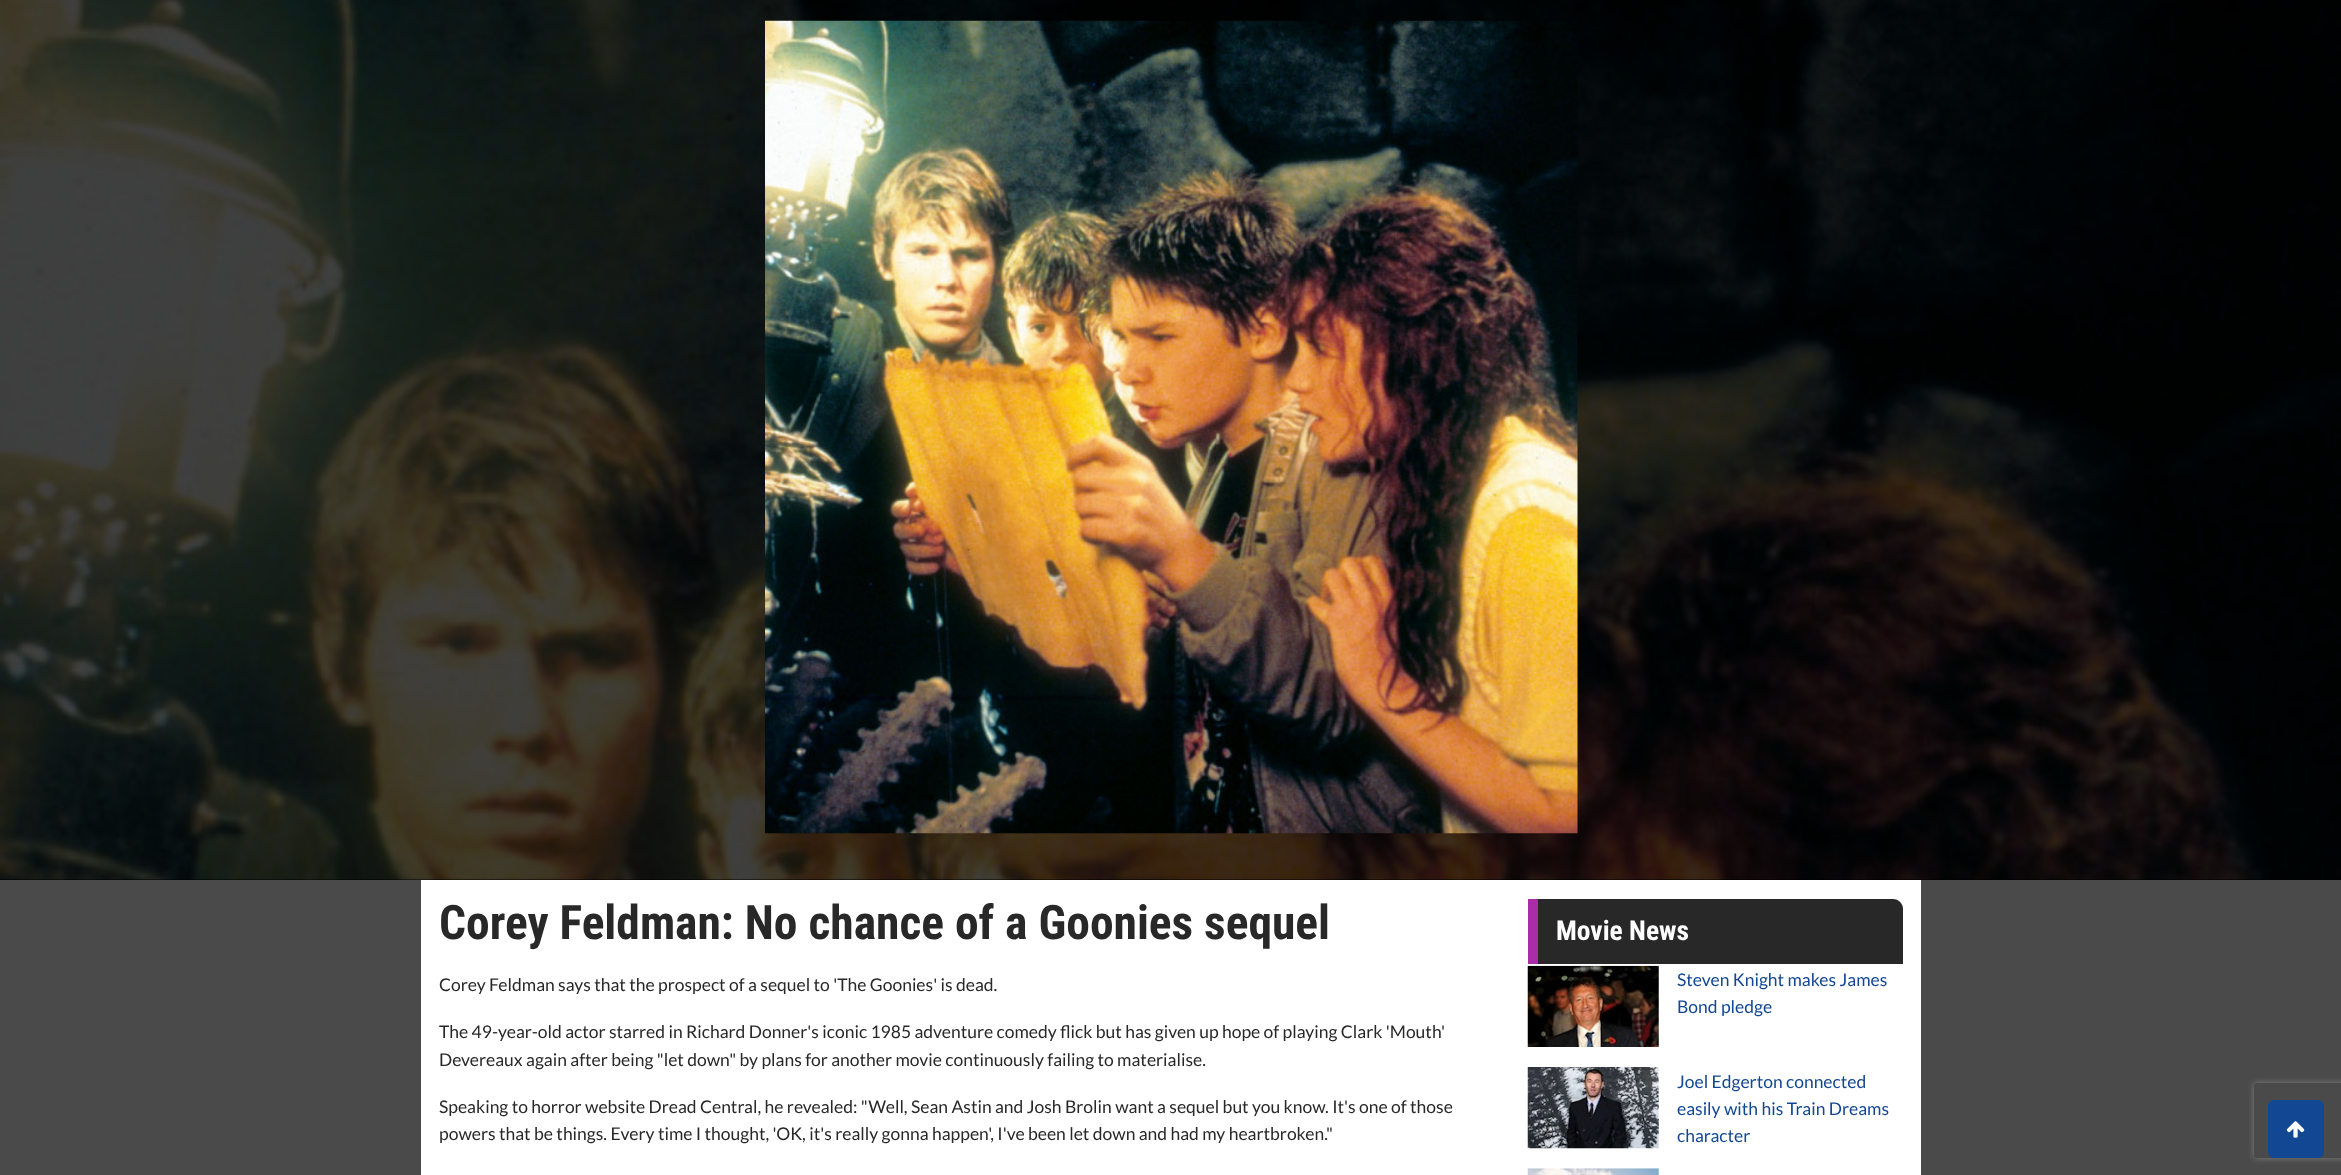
<?xml version="1.0" encoding="UTF-8"?>
<svg xmlns="http://www.w3.org/2000/svg" width="2341" height="1175">
    <defs>
        <clipPath id="clip1"><path d="M 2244 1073 H 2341 V 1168 H 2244 Z M 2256.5 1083 H 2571.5 C 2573 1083 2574 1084 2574 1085.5 V 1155.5 C 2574 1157 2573 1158 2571.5 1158 H 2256.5 C 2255 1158 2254 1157 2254 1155.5 V 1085.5 C 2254 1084 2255 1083 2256.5 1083 Z" clip-rule="evenodd"/></clipPath>
        <filter id="blur1" x="-50%" y="-200%" width="200%" height="500%"><feGaussianBlur stdDeviation="3"/></filter>
    </defs>
    <rect width="100%" height="100%" fill="#4A4A4A"/>
    <rect x="0" y="879" width="2341" height="1" fill="#000000"/>
    <image x="0" y="0" width="2341" height="880" href="img_01.png"/>
    <image x="765" y="20" width="813" height="814" href="img_02.png"/>
    <rect x="421" y="880" width="1500" height="295" fill="#FFFFFF"/>
    <text x="439" y="939" font-family="Roboto Condensed" font-size="47.5" font-weight="700" fill="#282828">Corey Feldman: No chance of a Goonies sequel</text>
    <text x="439" y="991" font-family="Lato" font-size="17.5" fill="#282828">Corey Feldman says that the prospect of a sequel to 'The Goonies' is dead.</text>
    <text font-family="Lato" font-size="17.5" fill="#282828">
        <tspan x="439" y="1038">The 49-year-old actor starred in Richard Donner's iconic 1985 adventure comedy flick but has given up hope of playing Clark 'Mouth'</tspan>
        <tspan x="439" y="1066">Devereaux again after being "let down" by plans for another movie continuously failing to materialise.</tspan>
    </text>
    <text font-family="Lato" font-size="17.5" fill="#282828">
        <tspan x="439" y="1113">Speaking to horror website Dread Central, he revealed: "Well, Sean Astin and Josh Brolin want a sequel but you know. It's one of those</tspan>
        <tspan x="439" y="1140">powers that be things. Every time I thought, 'OK, it's really gonna happen', I've been let down and had my heartbroken."</tspan>
    </text>
    <path d="M 1528 899 H 1893 C 1898.5 899 1903 903.5 1903 909 V 964 H 1528 Z" fill="#282828"/>
    <rect x="1528" y="899" width="10" height="65" fill="#AB2CA7"/>
    <text x="1556" y="940" font-family="Roboto Condensed" font-size="27.5" font-weight="700" fill="#FFFFFF">Movie News</text>
    <image x="1527" y="965" width="132" height="82" href="img_03.png"/>
    <text font-family="Lato" font-size="17.5" fill="#124793">
        <tspan x="1677" y="986">Steven Knight makes James</tspan>
        <tspan x="1677" y="1013">Bond pledge</tspan>
    </text>
    <image x="1527" y="1067" width="132" height="82" href="img_04.png"/>
    <text font-family="Lato" font-size="17.5" fill="#124793">
        <tspan x="1677" y="1088">Joel Edgerton connected</tspan>
        <tspan x="1677" y="1115">easily with his Train Dreams</tspan>
        <tspan x="1677" y="1142">character</tspan>
    </text>
    <image x="1527" y="1168" width="132" height="7" href="img_05.png"/>
    <g clip-path="url(#clip1)">
        <rect x="2254" y="1083" width="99" height="75" rx="2.5" fill="#808080" filter="url(#blur1)"/>
    </g>
    <rect x="2268" y="1100" width="56" height="58" rx="6" fill="#124793"/>
    <image x="2286" y="1121" width="19" height="17" href="img_06.png"/>
</svg>
